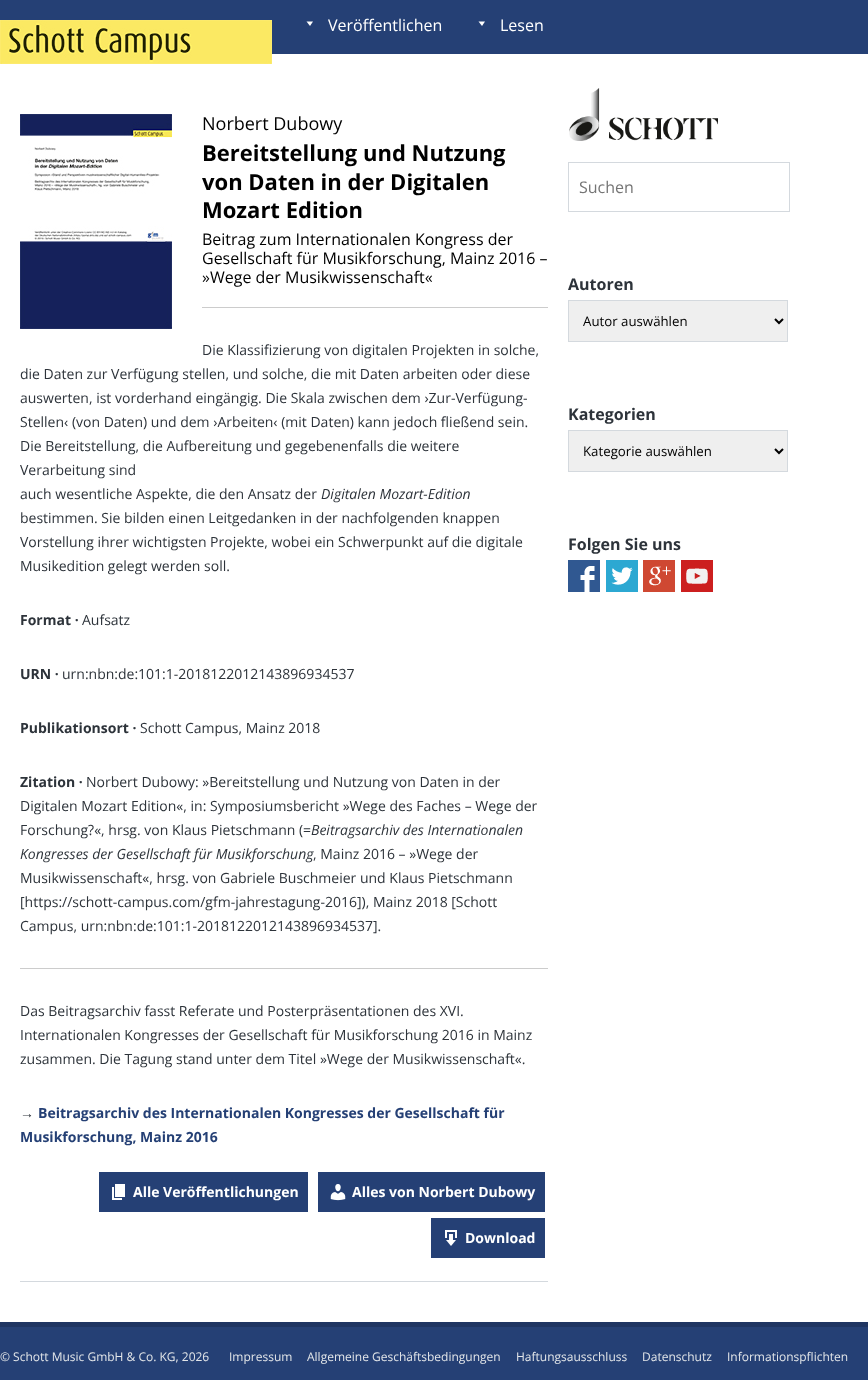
<?xml version="1.0" encoding="UTF-8"?>
<svg xmlns="http://www.w3.org/2000/svg" width="868" height="1380">
    <rect width="100%" height="100%" fill="#254075"/>
    <rect x="0" y="54" width="868" height="1268" fill="#FFFFFF"/>
    <image x="0" y="20" width="272" height="44" href="img_01.png"/>
    <path d="M 313 21.5 L 310 26 L 306.5 21.5 Z" fill="#FFFFFF"/>
    <text x="328" y="31" font-family="Open Sans" font-size="16" fill="#FFFFFF">Veröffentlichen</text>
    <path d="M 485 21.5 L 482 26 L 478.5 21.5 Z" fill="#FFFFFF"/>
    <text x="500" y="31" font-family="Open Sans" font-size="16" fill="#FFFFFF">Lesen</text>
    <image x="20" y="114" width="152" height="215" href="img_02.png"/>
    <text x="202" y="130" font-family="Open Sans" font-size="18" fill="#000000">Norbert Dubowy</text>
    <text font-family="Open Sans" font-size="22" font-weight="700" fill="#000000">
        <tspan x="202" y="161">Bereitstellung und Nutzung</tspan>
        <tspan x="202" y="190">von Daten in der Digitalen</tspan>
        <tspan x="202" y="218">Mozart Edition</tspan>
    </text>
    <text font-family="Open Sans" font-size="16" fill="#000000">
        <tspan x="202" y="245">Beitrag zum Internationalen Kongress der</tspan>
        <tspan x="202" y="264">Gesellschaft für Musikforschung, Mainz 2016 –</tspan>
        <tspan x="202" y="283">»Wege der Musikwissenschaft«</tspan>
    </text>
    <rect x="202" y="307" width="346" height="1" fill="#CCCCCC"/>
    <text x="202" y="355" font-family="Open Sans" font-size="14" fill="#2D333A">Die Klassifizierung von digitalen Projekten in solche,</text>
    <text font-family="Open Sans" font-size="14" fill="#2D333A">
        <tspan x="20" y="379">die Daten zur Verfügung stellen, und solche, die mit Daten arbeiten oder diese</tspan>
        <tspan x="20" y="403">auswerten, ist vorderhand eingängig. Die Skala zwischen dem ›Zur-Verfügung-</tspan>
        <tspan x="20" y="427">Stellen‹ (von Daten) und dem ›Arbeiten‹ (mit Daten) kann jedoch fließend sein.</tspan>
        <tspan x="20" y="451">Die Bereitstellung, die Aufbereitung und gegebenenfalls die weitere</tspan>
        <tspan x="20" y="475">Verarbeitung sind</tspan>
        <tspan x="20" y="499">auch wesentliche Aspekte, die den Ansatz der</tspan>
    </text>
    <text x="321" y="499" font-family="Open Sans" font-size="14" font-style="italic" fill="#2D333A">Digitalen Mozart-Edition</text>
    <text font-family="Open Sans" font-size="14" fill="#2D333A">
        <tspan x="20" y="523">bestimmen. Sie bilden einen Leitgedanken in der nachfolgenden knappen</tspan>
        <tspan x="20" y="547">Vorstellung ihrer wichtigsten Projekte, wobei ein Schwerpunkt auf die digitale</tspan>
        <tspan x="20" y="571">Musikedition gelegt werden soll.</tspan>
    </text>
    <text x="20" y="625" font-family="Open Sans" font-size="14" font-weight="700" fill="#2D333A">Format ·</text>
    <text x="82" y="625" font-family="Open Sans" font-size="14" fill="#2D333A">Aufsatz</text>
    <text x="20" y="679" font-family="Open Sans" font-size="14" font-weight="700" fill="#2D333A">URN ·</text>
    <text x="62" y="679" font-family="Open Sans" font-size="14" fill="#2D333A">urn:nbn:de:101:1-2018122012143896934537</text>
    <text x="20" y="733" font-family="Open Sans" font-size="14" font-weight="700" fill="#2D333A">Publikationsort ·</text>
    <text x="140" y="733" font-family="Open Sans" font-size="14" fill="#2D333A">Schott Campus, Mainz 2018</text>
    <text x="20" y="787" font-family="Open Sans" font-size="14" font-weight="700" fill="#2D333A">Zitation ·</text>
    <text x="86" y="787" font-family="Open Sans" font-size="14" fill="#2D333A">Norbert Dubowy: »Bereitstellung und Nutzung von Daten in der</text>
    <text font-family="Open Sans" font-size="14" fill="#2D333A">
        <tspan x="20" y="811">Digitalen Mozart Edition«, in: Symposiumsbericht »Wege des Faches – Wege der</tspan>
        <tspan x="20" y="835">Forschung?«, hrsg. von Klaus Pietschmann (=</tspan>
    </text>
    <text x="311" y="835" font-family="Open Sans" font-size="14" font-style="italic" fill="#2D333A">Beitragsarchiv des Internationalen</text>
    <text x="20" y="859" font-family="Open Sans" font-size="14" font-style="italic" fill="#2D333A">Kongresses der Gesellschaft für Musikforschung</text>
    <text x="313" y="859" font-family="Open Sans" font-size="14" fill="#2D333A">, Mainz 2016 – »Wege der</text>
    <text font-family="Open Sans" font-size="14" fill="#2D333A">
        <tspan x="20" y="883">Musikwissenschaft«, hrsg. von Gabriele Buschmeier und Klaus Pietschmann</tspan>
        <tspan x="20" y="907">[https://schott-campus.com/gfm-jahrestagung-2016]), Mainz 2018 [Schott</tspan>
        <tspan x="20" y="931">Campus, urn:nbn:de:101:1-2018122012143896934537].</tspan>
    </text>
    <rect x="20" y="968" width="528" height="1" fill="#CCCCCC"/>
    <text font-family="Open Sans" font-size="14" fill="#2D333A">
        <tspan x="20" y="1016">Das Beitragsarchiv fasst Referate und Posterpräsentationen des XVI.</tspan>
        <tspan x="20" y="1040">Internationalen Kongresses der Gesellschaft für Musikforschung 2016 in Mainz</tspan>
        <tspan x="20" y="1064">zusammen. Die Tagung stand unter dem Titel »Wege der Musikwissenschaft«.</tspan>
    </text>
    <text x="20" y="1118" font-family="Liberation Sans" font-size="14" font-weight="700" fill="#2D333A">→</text>
    <text x="38" y="1118" font-family="Open Sans" font-size="14" font-weight="700" fill="#254075">Beitragsarchiv des Internationalen Kongresses der Gesellschaft für</text>
    <text x="20" y="1142" font-family="Open Sans" font-size="14" font-weight="700" fill="#254075">Musikforschung, Mainz 2016</text>
    <rect x="20" y="1281" width="528" height="1" fill="#D4D9DE"/>
    <rect x="99" y="1172" width="209" height="40" fill="#254075"/>
    <image x="112" y="1184" width="13" height="16" href="img_03.png"/>
    <text x="133" y="1197" font-family="Open Sans" font-size="14" font-weight="700" fill="#FFFFFF">Alle Veröffentlichungen</text>
    <rect x="318" y="1172" width="227" height="40" fill="#254075"/>
    <image x="330" y="1184" width="16" height="17" href="img_04.png"/>
    <text x="352" y="1197" font-family="Open Sans" font-size="14" font-weight="700" fill="#FFFFFF">Alles von Norbert Dubowy</text>
    <rect x="431" y="1218" width="114" height="40" fill="#254075"/>
    <image x="445" y="1230" width="12" height="16" href="img_05.png"/>
    <text x="465" y="1243" font-family="Open Sans" font-size="14" font-weight="700" fill="#FFFFFF">Download</text>
    <image x="569" y="88" width="149" height="53" href="img_06.png"/>
    <rect x="568.5" y="162.5" width="221" height="49" fill="none" stroke="#D4D9DE"/>
    <text x="579" y="193" font-family="Open Sans" font-size="16" fill="#757575">Suchen</text>
    <text x="568" y="290" font-family="Open Sans" font-size="16" font-weight="700" fill="#2D333A">Autoren</text>
    <rect x="568.5" y="300.5" width="219" height="41" fill="#EFEFEF" stroke="#D4D9DE"/>
    <path d="M 775 319 L 779 323 L 783 319" fill="none" stroke="#000000" stroke-width="2"/>
    <text x="583" y="326" font-family="Open Sans" font-size="13.25" fill="#000000">Autor auswählen</text>
    <text x="568" y="420" font-family="Open Sans" font-size="16" font-weight="700" fill="#2D333A">Kategorien</text>
    <rect x="568.5" y="430.5" width="219" height="41" fill="#EFEFEF" stroke="#D4D9DE"/>
    <path d="M 775 449 L 779 453 L 783 449" fill="none" stroke="#000000" stroke-width="2"/>
    <text x="583" y="456" font-family="Open Sans" font-size="13.25" fill="#000000">Kategorie auswählen</text>
    <text x="568" y="550" font-family="Open Sans" font-size="16" font-weight="700" fill="#2D333A">Folgen Sie uns</text>
    <image x="568" y="560" width="32" height="32" href="img_07.png"/>
    <image x="606" y="560" width="32" height="32" href="img_08.png"/>
    <image x="643" y="560" width="32" height="32" href="img_09.png"/>
    <image x="681" y="560" width="32" height="32" href="img_10.png"/>
    <rect x="0" y="1322" width="868" height="5" fill="#1F3562"/>
    <text x="0" y="1361" font-family="Open Sans" font-size="12" fill="#E3E6E9">© Schott Music GmbH &amp; Co. KG, 2026</text>
    <text x="229" y="1361" font-family="Open Sans" font-size="12" fill="#E3E6E9">Impressum</text>
    <text x="307" y="1361" font-family="Open Sans" font-size="12" fill="#E3E6E9">Allgemeine Geschäftsbedingungen</text>
    <text x="516" y="1361" font-family="Open Sans" font-size="12" fill="#E3E6E9">Haftungsausschluss</text>
    <text x="642" y="1361" font-family="Open Sans" font-size="12" fill="#E3E6E9">Datenschutz</text>
    <text x="727" y="1361" font-family="Open Sans" font-size="12" fill="#E3E6E9">Informationspflichten</text>
</svg>
